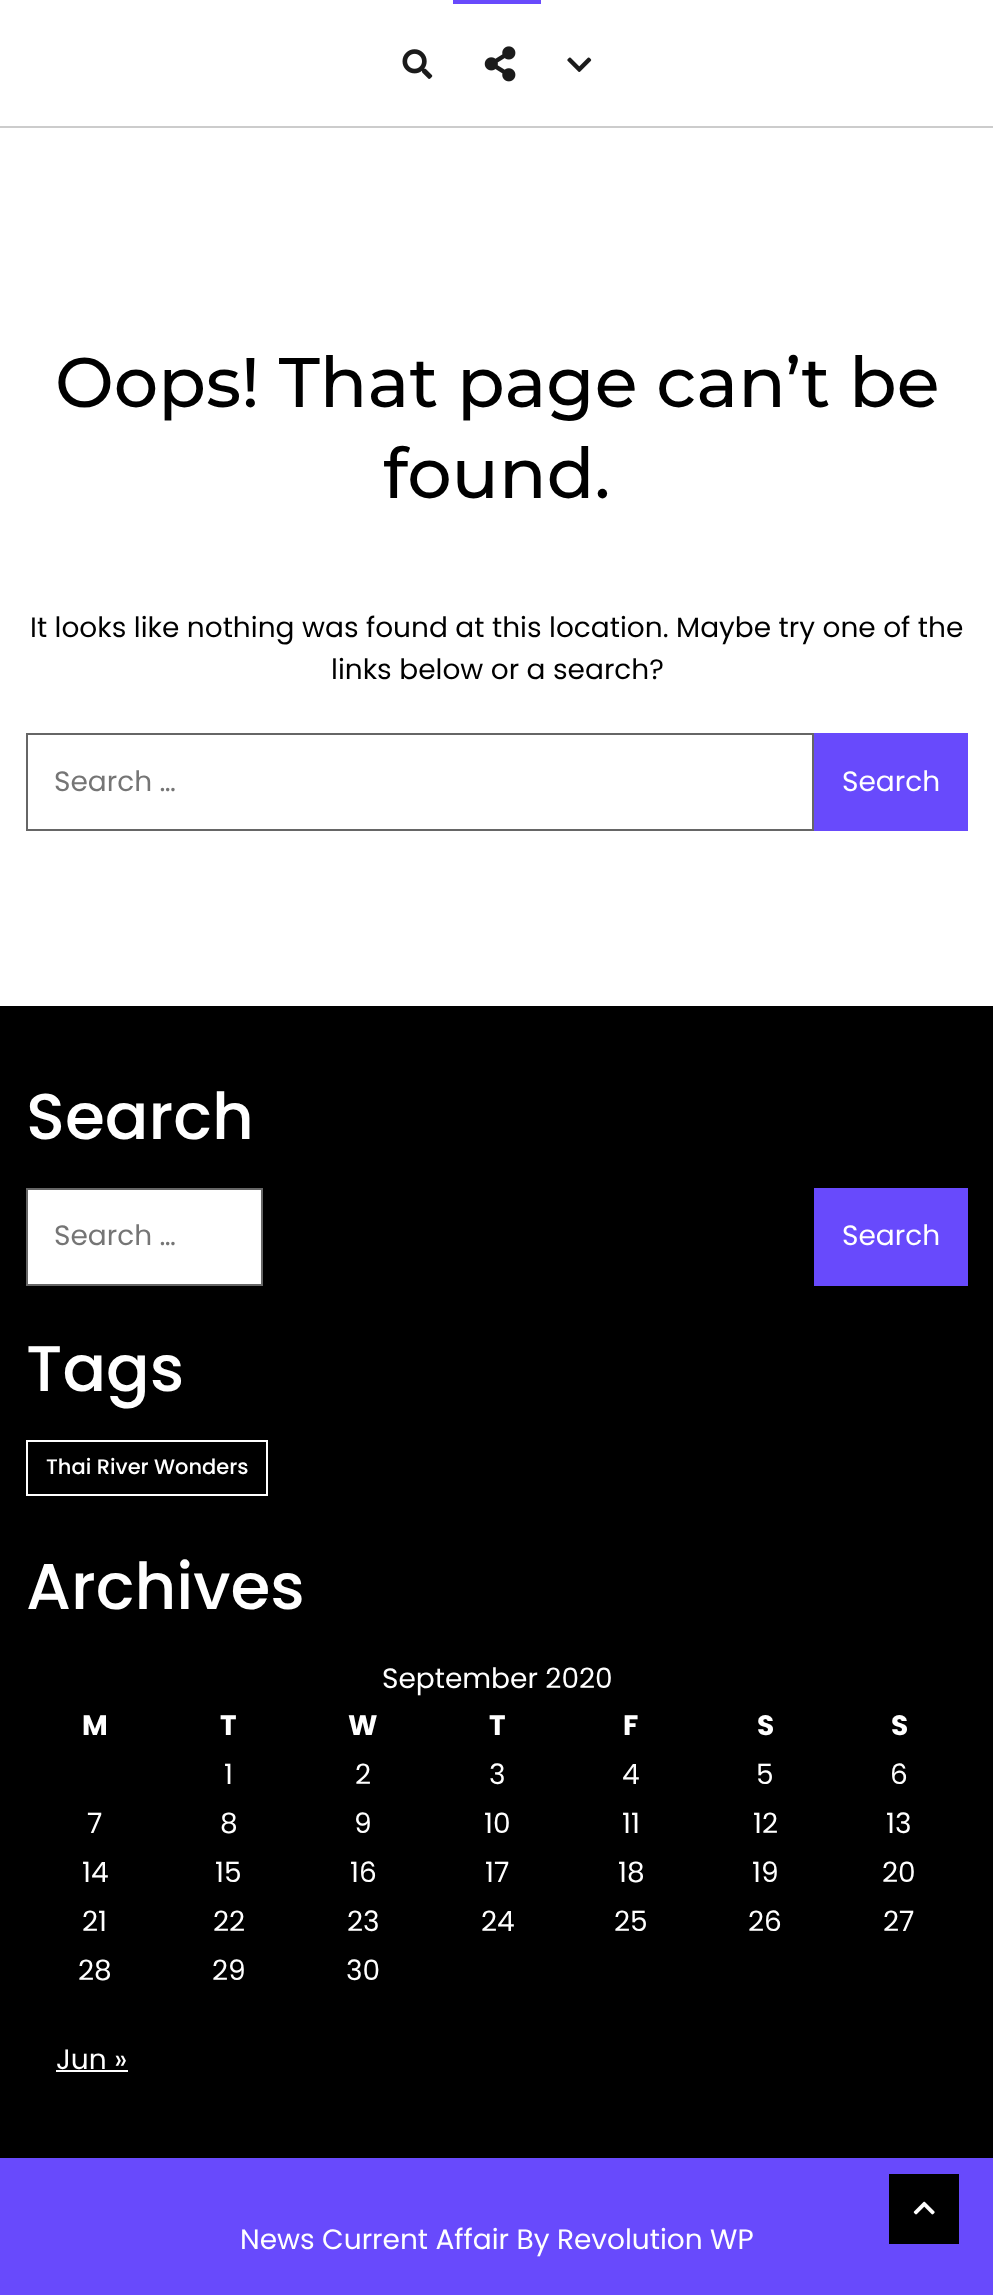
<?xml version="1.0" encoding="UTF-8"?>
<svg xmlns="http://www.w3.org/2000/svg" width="993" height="2295">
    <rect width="100%" height="100%" fill="#FFFFFF"/>
    <rect x="0" y="126" width="993" height="2" fill="#CCCCCC"/>
    <rect x="453" y="0" width="88" height="4" fill="#684AFC"/>
    <image x="402" y="49" width="31" height="30" href="img_01.png"/>
    <image x="484" y="46" width="32" height="36" href="img_02.png"/>
    <image x="567" y="57" width="25" height="15" href="img_03.png"/>
    <text x="55" y="407" font-family="Montserrat" font-size="70" font-weight="500" fill="#000000">Oops! That page can’t be</text>
    <text x="383" y="498" font-family="Montserrat" font-size="70" font-weight="500" fill="#000000">found.</text>
    <text x="30" y="637" font-family="Poppins" font-size="28" fill="#000000">It looks like nothing was found at this location. Maybe try one of the</text>
    <text x="331" y="679" font-family="Poppins" font-size="28" fill="#000000">links below or a search?</text>
    <rect x="27" y="734" width="786" height="96" fill="none" stroke="#666666" stroke-width="2"/>
    <text x="54" y="791" font-family="Poppins" font-size="28" fill="#757575">Search …</text>
    <rect x="814" y="733" width="154" height="98" fill="#684AFC"/>
    <text x="842" y="791" font-family="Poppins" font-size="28" fill="#FFFFFF">Search</text>
    <rect x="0" y="1006" width="993" height="1152" fill="#000000"/>
    <text x="26" y="1139" font-family="Poppins" font-size="64.5" font-weight="500" fill="#FFFFFF">Search</text>
    <rect x="27" y="1189" width="235" height="96" fill="#FFFFFF" stroke="#666666" stroke-width="2"/>
    <text x="54" y="1245" font-family="Poppins" font-size="28" fill="#757575">Search …</text>
    <rect x="814" y="1188" width="154" height="98" fill="#684AFC"/>
    <text x="842" y="1245" font-family="Poppins" font-size="28" fill="#FFFFFF">Search</text>
    <text x="26" y="1391" font-family="Poppins" font-size="64.5" font-weight="500" fill="#FFFFFF">Tags</text>
    <rect x="27" y="1441" width="240" height="54" fill="none" stroke="#FFFFFF" stroke-width="2"/>
    <text x="46" y="1474" font-family="Poppins" font-size="21" font-weight="500" fill="#FFFFFF">Thai River Wonders</text>
    <text x="26" y="1609" font-family="Poppins" font-size="64.5" font-weight="500" fill="#FFFFFF">Archives</text>
    <text x="382" y="1688" font-family="Poppins" font-size="28" fill="#FFFFFF">September 2020</text>
    <text x="82" y="1735" font-family="Poppins" font-size="28" font-weight="700" fill="#FFFFFF">M</text>
    <text x="220" y="1735" font-family="Poppins" font-size="28" font-weight="700" fill="#FFFFFF">T</text>
    <text x="348" y="1735" font-family="Poppins" font-size="28" font-weight="700" fill="#FFFFFF">W</text>
    <text x="489" y="1735" font-family="Poppins" font-size="28" font-weight="700" fill="#FFFFFF">T</text>
    <text x="623" y="1735" font-family="Poppins" font-size="28" font-weight="700" fill="#FFFFFF">F</text>
    <text x="757" y="1735" font-family="Poppins" font-size="28" font-weight="700" fill="#FFFFFF">S</text>
    <text x="891" y="1735" font-family="Poppins" font-size="28" font-weight="700" fill="#FFFFFF">S</text>
    <text x="224" y="1784" font-family="Poppins" font-size="28" fill="#FFFFFF">1</text>
    <text x="355" y="1784" font-family="Poppins" font-size="28" fill="#FFFFFF">2</text>
    <text x="489" y="1784" font-family="Poppins" font-size="28" fill="#FFFFFF">3</text>
    <text x="622" y="1784" font-family="Poppins" font-size="28" fill="#FFFFFF">4</text>
    <text x="756" y="1784" font-family="Poppins" font-size="28" fill="#FFFFFF">5</text>
    <text x="890" y="1784" font-family="Poppins" font-size="28" fill="#FFFFFF">6</text>
    <text x="87" y="1833" font-family="Poppins" font-size="28" fill="#FFFFFF">7</text>
    <text x="220" y="1833" font-family="Poppins" font-size="28" fill="#FFFFFF">8</text>
    <text x="354" y="1833" font-family="Poppins" font-size="28" fill="#FFFFFF">9</text>
    <text x="484" y="1833" font-family="Poppins" font-size="28" fill="#FFFFFF">10</text>
    <text x="622" y="1833" font-family="Poppins" font-size="28" fill="#FFFFFF">11</text>
    <text x="753" y="1833" font-family="Poppins" font-size="28" fill="#FFFFFF">12</text>
    <text x="886" y="1833" font-family="Poppins" font-size="28" fill="#FFFFFF">13</text>
    <text x="82" y="1882" font-family="Poppins" font-size="28" fill="#FFFFFF">14</text>
    <text x="215" y="1882" font-family="Poppins" font-size="28" fill="#FFFFFF">15</text>
    <text x="350" y="1882" font-family="Poppins" font-size="28" fill="#FFFFFF">16</text>
    <text x="485" y="1882" font-family="Poppins" font-size="28" fill="#FFFFFF">17</text>
    <text x="618" y="1882" font-family="Poppins" font-size="28" fill="#FFFFFF">18</text>
    <text x="752" y="1882" font-family="Poppins" font-size="28" fill="#FFFFFF">19</text>
    <text x="882" y="1882" font-family="Poppins" font-size="28" fill="#FFFFFF">20</text>
    <text x="82" y="1931" font-family="Poppins" font-size="28" fill="#FFFFFF">21</text>
    <text x="213" y="1931" font-family="Poppins" font-size="28" fill="#FFFFFF">22</text>
    <text x="347" y="1931" font-family="Poppins" font-size="28" fill="#FFFFFF">23</text>
    <text x="481" y="1931" font-family="Poppins" font-size="28" fill="#FFFFFF">24</text>
    <text x="614" y="1931" font-family="Poppins" font-size="28" fill="#FFFFFF">25</text>
    <text x="748" y="1931" font-family="Poppins" font-size="28" fill="#FFFFFF">26</text>
    <text x="883" y="1931" font-family="Poppins" font-size="28" fill="#FFFFFF">27</text>
    <text x="78" y="1980" font-family="Poppins" font-size="28" fill="#FFFFFF">28</text>
    <text x="212" y="1980" font-family="Poppins" font-size="28" fill="#FFFFFF">29</text>
    <text x="346" y="1980" font-family="Poppins" font-size="28" fill="#FFFFFF">30</text>
    <text x="56" y="2069" font-family="Poppins" font-size="28" fill="#FFFFFF">Jun »</text>
    <rect x="56" y="2070" width="72" height="2" fill="#FFFFFF"/>
    <rect x="0" y="2158" width="993" height="137" fill="#684AFC"/>
    <text x="240" y="2249" font-family="Poppins" font-size="28" fill="#FFFFFF">News Current Affair By Revolution WP</text>
    <rect x="889" y="2174" width="70" height="70" fill="#000000"/>
    <image x="913" y="2201" width="22" height="14" href="img_04.png"/>
</svg>
